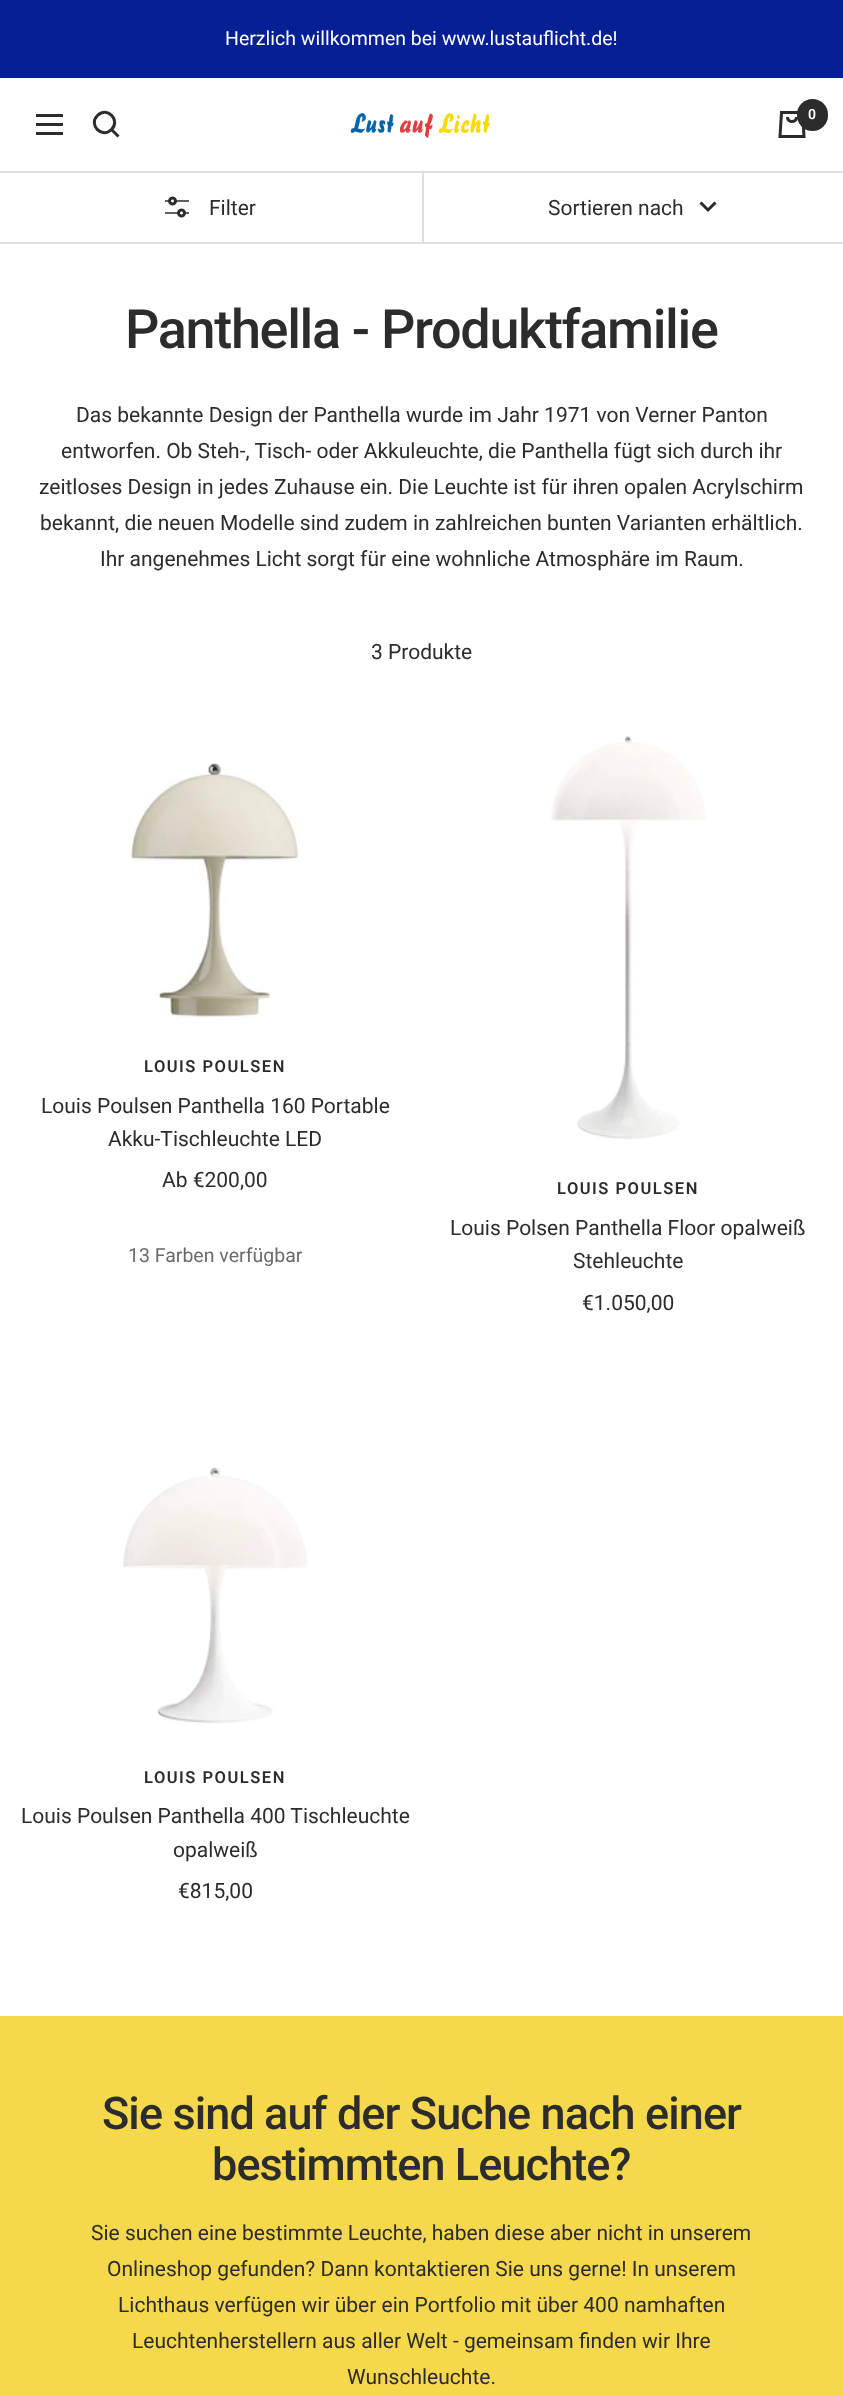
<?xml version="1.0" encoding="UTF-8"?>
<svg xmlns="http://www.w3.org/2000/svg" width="843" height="2396">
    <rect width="100%" height="100%" fill="#FFFFFF"/>
    <rect x="0" y="0" width="843" height="78" fill="#061F94"/>
    <text x="225" y="45" font-family="Roboto" font-size="19.5" fill="#FFFFFF">Herzlich willkommen bei www.lustauflicht.de!</text>
    <path d="M 36 115.5 H 63 M 36 133.5 H 63 Z M 36 124.5 H 63 Z" fill="none" stroke="#2C2C2C" stroke-width="3"/>
    <path d="M 111.5 129.5 C 121 120 107 106 97.5 115.5 C 88 125 102 139 111.5 129.5 Z M 111.5 129.5 L 118.5 136.5" fill="none" stroke="#2C2C2C" stroke-width="3"/>
    <image x="350" y="112" width="141" height="27" href="img_01.png"/>
    <path d="M 781.5 112.5 H 802.5 L 804 136.5 H 780 Z M 787.5 117 C 787.5 123 796.5 123 796.5 117" fill="none" stroke="#2C2C2C" stroke-width="3"/>
    <rect x="797" y="99" width="31" height="32" rx="15.5" fill="#2C2C2C"/>
    <text x="808" y="119" font-family="Roboto" font-size="14" font-weight="600" fill="#FFFFFF">0</text>
    <rect x="0" y="171" width="843" height="2" fill="#DFDFDF"/>
    <rect x="0" y="242" width="843" height="2" fill="#DFDFDF"/>
    <image x="165" y="196" width="24" height="22" href="img_02.png"/>
    <text x="209" y="215" font-family="Roboto" font-size="21" fill="#2C2C2C">Filter</text>
    <rect x="422" y="171" width="2" height="72" fill="#DFDFDF"/>
    <text x="548" y="215" font-family="Roboto" font-size="21" fill="#2C2C2C">Sortieren nach</text>
    <path d="M 700.5 202.5 L 708 210 L 715.5 202.5" fill="none" stroke="#2C2C2C" stroke-width="3"/>
    <text x="125" y="348" font-family="Roboto" font-size="54" font-weight="500" letter-spacing="-1.35" fill="#2C2C2C">Panthella - Produktfamilie</text>
    <text x="76" y="422" font-family="Roboto" font-size="21" fill="#2C2C2C">Das bekannte Design der Panthella wurde im Jahr 1971 von Verner Panton</text>
    <text x="61" y="458" font-family="Roboto" font-size="21" fill="#2C2C2C">entworfen. Ob Steh-, Tisch- oder Akkuleuchte, die Panthella fügt sich durch ihr</text>
    <text x="39" y="494" font-family="Roboto" font-size="21" fill="#2C2C2C">zeitloses Design in jedes Zuhause ein. Die Leuchte ist für ihren opalen Acrylschirm</text>
    <text x="40" y="530" font-family="Roboto" font-size="21" fill="#2C2C2C">bekannt, die neuen Modelle sind zudem in zahlreichen bunten Varianten erhältlich.</text>
    <text x="100" y="566" font-family="Roboto" font-size="21" fill="#2C2C2C">Ihr angenehmes Licht sorgt für eine wohnliche Atmosphäre im Raum.</text>
    <text x="371" y="659" font-family="Roboto" font-size="21" fill="#2C2C2C">3 Produkte</text>
    <image x="129" y="762" width="170" height="258" href="img_03.png"/>
    <text x="144" y="1072" font-family="Roboto" font-size="16.5" font-weight="600" letter-spacing="1.5" fill="#2C2C2C">LOUIS POULSEN</text>
    <text x="41" y="1113" font-family="Roboto" font-size="21" fill="#2C2C2C">Louis Poulsen Panthella 160 Portable</text>
    <text x="108" y="1146" font-family="Roboto" font-size="21" fill="#2C2C2C">Akku-Tischleuchte LED</text>
    <text x="162" y="1187" font-family="Roboto" font-size="21" fill="#2C2C2C">Ab €200,00</text>
    <text x="128" y="1262" font-family="Roboto" font-size="19.5" fill="#6B6B6B">13 Farben verfügbar</text>
    <image x="551" y="736" width="155" height="404" href="img_04.png"/>
    <text x="557" y="1194" font-family="Roboto" font-size="16.5" font-weight="600" letter-spacing="1.5" fill="#2C2C2C">LOUIS POULSEN</text>
    <text x="450" y="1235" font-family="Roboto" font-size="21" fill="#2C2C2C">Louis Polsen Panthella Floor opalweiß</text>
    <text x="573" y="1268" font-family="Roboto" font-size="21" fill="#2C2C2C">Stehleuchte</text>
    <text x="582" y="1310" font-family="Roboto" font-size="21" fill="#2C2C2C">€1.050,00</text>
    <image x="123" y="1467" width="185" height="257" href="img_05.png"/>
    <text x="144" y="1783" font-family="Roboto" font-size="16.5" font-weight="600" letter-spacing="1.5" fill="#2C2C2C">LOUIS POULSEN</text>
    <text x="21" y="1823" font-family="Roboto" font-size="21" fill="#2C2C2C">Louis Poulsen Panthella 400 Tischleuchte</text>
    <text x="173" y="1857" font-family="Roboto" font-size="21" fill="#2C2C2C">opalweiß</text>
    <text x="178" y="1898" font-family="Roboto" font-size="21" fill="#2C2C2C">€815,00</text>
    <rect x="0" y="2016" width="843" height="380" fill="#F5D84C"/>
    <text x="102" y="2129" font-family="Roboto" font-size="45" font-weight="500" letter-spacing="-0.9" fill="#2C2C2C">Sie sind auf der Suche nach einer</text>
    <text x="212" y="2180" font-family="Roboto" font-size="45" font-weight="500" letter-spacing="-0.9" fill="#2C2C2C">bestimmten Leuchte?</text>
    <text x="91" y="2240" font-family="Roboto" font-size="21" fill="#2C2C2C">Sie suchen eine bestimmte Leuchte, haben diese aber nicht in unserem</text>
    <text x="107" y="2276" font-family="Roboto" font-size="21" fill="#2C2C2C">Onlineshop gefunden? Dann kontaktieren Sie uns gerne! In unserem</text>
    <text x="118" y="2312" font-family="Roboto" font-size="21" fill="#2C2C2C">Lichthaus verfügen wir über ein Portfolio mit über 400 namhaften</text>
    <text x="132" y="2348" font-family="Roboto" font-size="21" fill="#2C2C2C">Leuchtenherstellern aus aller Welt - gemeinsam finden wir Ihre</text>
    <text x="347" y="2384" font-family="Roboto" font-size="21" fill="#2C2C2C">Wunschleuchte.</text>
</svg>
